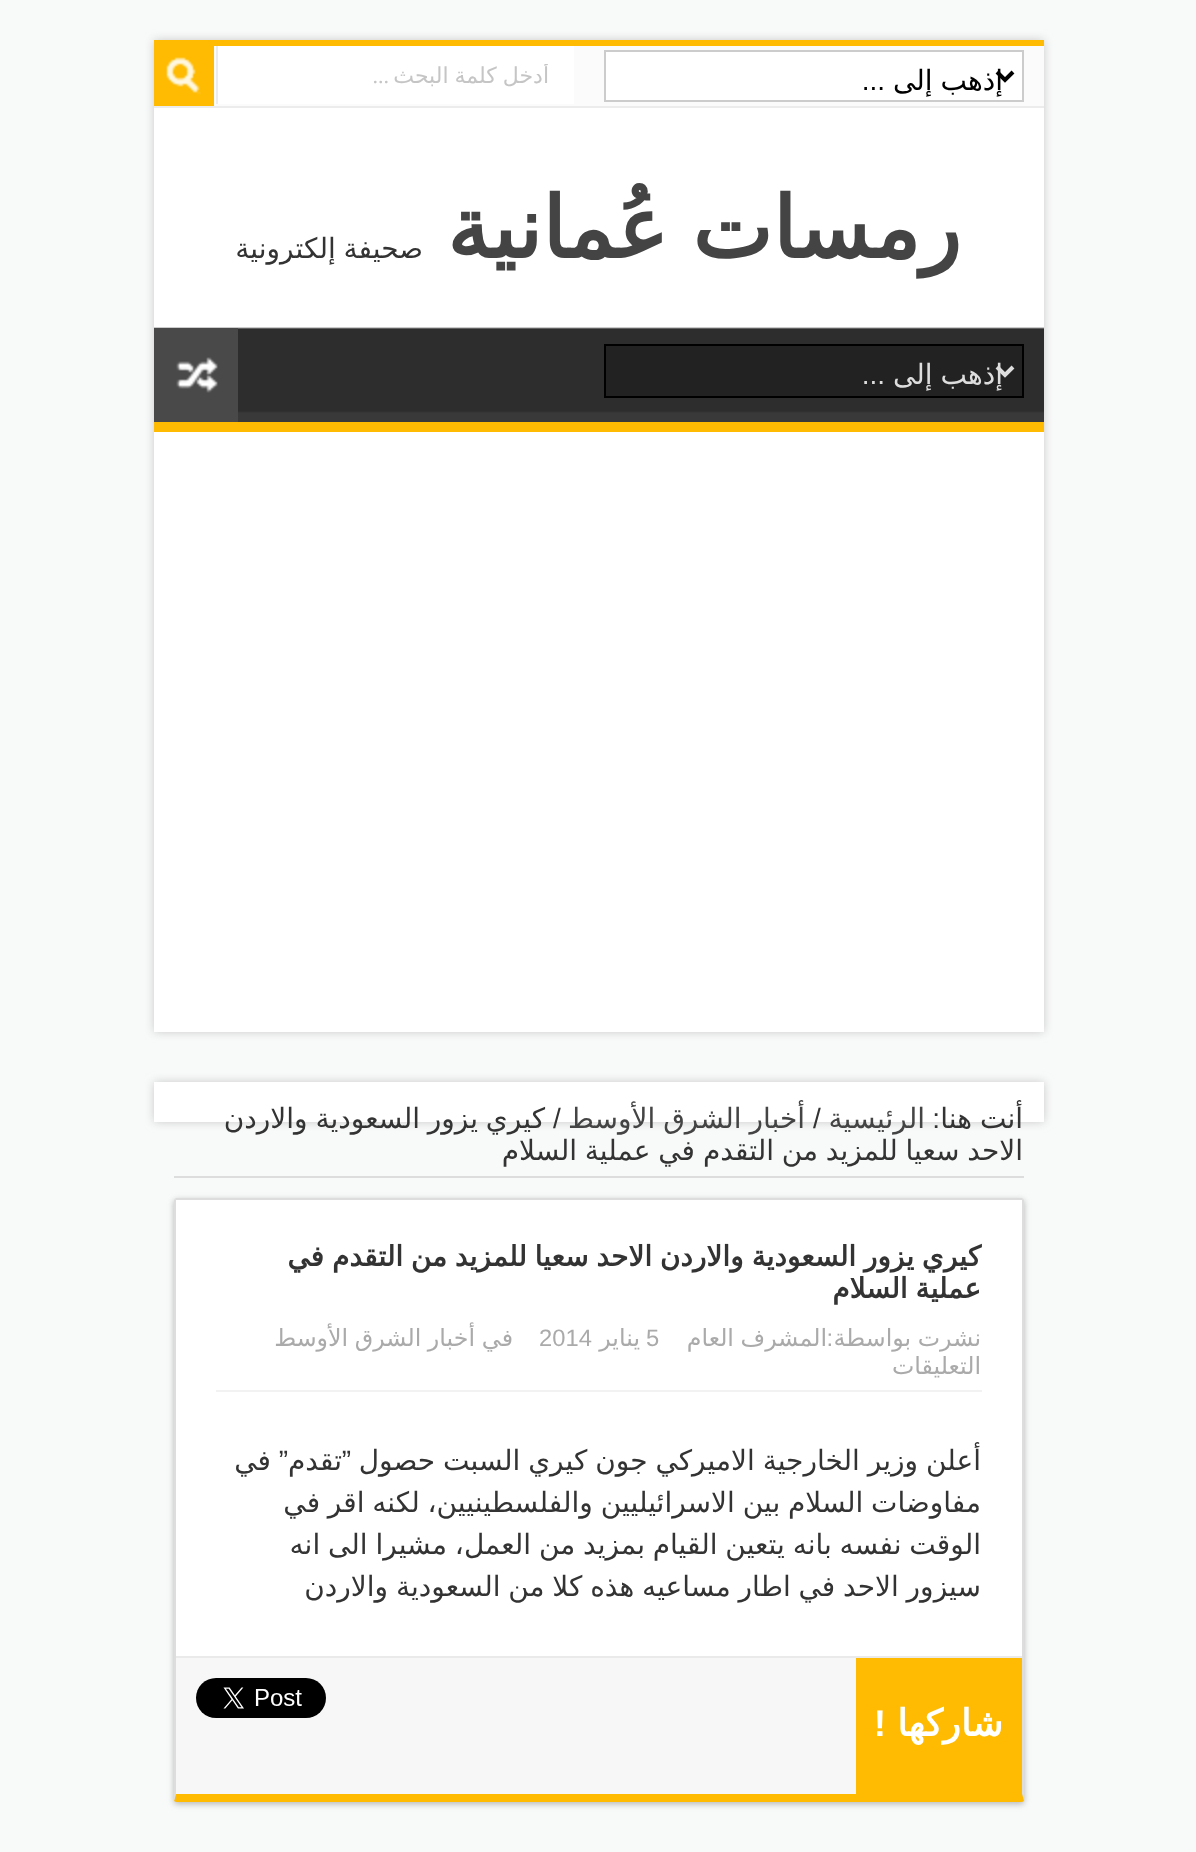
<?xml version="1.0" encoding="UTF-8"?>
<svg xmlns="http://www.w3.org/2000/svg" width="1196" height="1852">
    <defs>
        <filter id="blur1" x="-50%" y="-200%" width="200%" height="500%"><feGaussianBlur stdDeviation="5"/></filter>
        <clipPath id="clip1"><rect x="242" y="64" width="308" height="26"/></clipPath>
        <filter id="blur2" x="-50%" y="-200%" width="200%" height="500%"><feGaussianBlur stdDeviation="3"/></filter>
    </defs>
    <rect width="100%" height="100%" fill="#F8F9F9"/>
    <rect x="154" y="40" width="890" height="992" fill="#CACACA" filter="url(#blur1)"/>
    <rect x="154" y="108" width="890" height="924" fill="#FFFFFF"/>
    <rect x="214" y="46" width="830" height="60" fill="#FBFBFB"/>
    <rect x="154" y="40" width="890" height="6" fill="#FFBB01"/>
    <rect x="154" y="106" width="890" height="2" fill="#ECECEC"/>
    <rect x="605" y="51" width="418" height="50" fill="#FFFFFF" stroke="#CCCCCC" stroke-width="2"/>
    <path d="M 997 72 L 1005 80 L 1013 72" fill="none" stroke="#000000" stroke-width="4"/>
    <text x="1003" y="90" word-spacing="-1" font-family="DejaVu Sans" font-size="28" direction="rtl" fill="#000000">إذهب إلى</text>
    <text x="885" y="90" font-family="Liberation Sans" font-size="28" direction="rtl" fill="#000000">...</text>
    <rect x="218" y="46" width="356" height="58" fill="#FFFFFF"/>
    <rect x="216" y="46" width="2" height="58" fill="#ECECEC"/>
    <g clip-path="url(#clip1)">
        <text x="549" y="83" word-spacing="-1" font-family="DejaVu Sans" font-size="22" direction="rtl" fill="#C5C5C5">أدخل كلمة البحث</text>
    </g>
    <text x="389" y="83" font-family="Liberation Serif" font-size="22" direction="rtl" fill="#C5C5C5">...</text>
    <rect x="154" y="46" width="60" height="60" fill="#FFBB01"/>
    <image x="166" y="57" width="35" height="38" href="img_01.png"/>
    <text x="961" y="258" word-spacing="-3" font-family="DejaVu Sans" font-size="85.25" font-weight="700" direction="rtl" fill="#444444">رمسات عُمانية</text>
    <text x="423" y="258" word-spacing="-1.1" font-family="DejaVu Sans" font-size="28" direction="rtl" fill="#333333">صحيفة إلكترونية</text>
    <image x="154" y="327" width="890" height="95" href="img_02.png"/>
    <rect x="154" y="422" width="890" height="10" fill="#FFBB01"/>
    <rect x="605" y="345" width="418" height="52" fill="#222222" stroke="#000000" stroke-width="2"/>
    <path d="M 997 367 L 1005 375 L 1013 367" fill="none" stroke="#DDDDDD" stroke-width="4"/>
    <text x="1003" y="384" word-spacing="-1" font-family="DejaVu Sans" font-size="28" direction="rtl" fill="#DDDDDD">إذهب إلى</text>
    <text x="885" y="384" font-family="Liberation Sans" font-size="28" direction="rtl" fill="#DDDDDD">...</text>
    <rect x="154" y="328" width="84" height="94" fill="#494949"/>
    <image x="176" y="357" width="42" height="36" href="img_03.png"/>
    <rect x="154" y="1082" width="890" height="40" fill="#CACACA" filter="url(#blur1)"/>
    <rect x="154" y="1082" width="890" height="40" fill="#FFFFFF"/>
    <rect x="174" y="1176" width="850" height="2" fill="#DDDDDD"/>
    <text x="1023" y="1128" word-spacing="-1" font-family="DejaVu Sans" font-size="28" direction="rtl" fill="#333333">أنت هنا</text>
    <text x="940" y="1128" font-family="Liberation Sans" font-size="28" direction="rtl" fill="#333333">:</text>
    <text x="925" y="1128" font-family="DejaVu Sans" font-size="28" direction="rtl" fill="#444444">الرئيسية</text>
    <text x="813" y="1128" font-family="Liberation Sans" font-size="28" fill="#333333">/</text>
    <text x="805" y="1128" word-spacing="-1.1" font-family="DejaVu Sans" font-size="28" direction="rtl" fill="#444444">أخبار الشرق الأوسط</text>
    <text x="553" y="1128" font-family="Liberation Sans" font-size="28" fill="#333333">/</text>
    <text x="545" y="1128" word-spacing="-1.1" font-family="DejaVu Sans" font-size="28" direction="rtl" fill="#333333">كيري يزور السعودية والاردن</text>
    <text x="1023" y="1160" word-spacing="-1.1" font-family="DejaVu Sans" font-size="28" direction="rtl" fill="#333333">الاحد سعيا للمزيد من</text>
    <text x="774" y="1160" font-family="DejaVu Sans" font-size="28" direction="rtl" fill="#333333">التقدم</text>
    <text x="695" y="1160" word-spacing="-1.1" font-family="DejaVu Sans" font-size="28" direction="rtl" fill="#333333">في عملية السلام</text>
    <rect x="174" y="1200" width="850" height="604" rx="2" fill="#B5B5B5" filter="url(#blur2)"/>
    <rect x="176" y="1200" width="846" height="456" fill="#FFFFFF"/>
    <path d="M 176 1198 L 175 1199 L 176 1200 H 1022 L 1023 1199 L 1022 1198 Z" fill="#DDDDDD"/>
    <path d="M 1024 1800 V 1200 L 1023 1199 L 1022 1200 V 1794 L 1024 1801 Z" fill="#DDDDDD"/>
    <path d="M 176 1802 H 1022 L 1024 1801 L 1022 1794 H 176 L 174 1801 Z" fill="#FFBB01"/>
    <path d="M 176 1200 L 175 1199 L 174 1200 V 1801 L 176 1794 Z" fill="#DDDDDD"/>
    <text x="981" y="1266" word-spacing="-1.1" font-family="DejaVu Sans" font-size="28" font-weight="700" direction="rtl" fill="#333333">كيري يزور السعودية والاردن الاحد سعيا للمزيد من</text>
    <text x="403" y="1266" font-family="DejaVu Sans" font-size="28" font-weight="700" direction="rtl" fill="#333333">التقدم</text>
    <text x="324" y="1266" font-family="DejaVu Sans" font-size="28" font-weight="700" direction="rtl" fill="#333333">في</text>
    <text x="981" y="1298" word-spacing="-1.1" font-family="DejaVu Sans" font-size="28" font-weight="700" direction="rtl" fill="#333333">عملية السلام</text>
    <rect x="216" y="1390" width="766" height="2" fill="#F2F2F2"/>
    <text x="981" y="1346" word-spacing="-1" font-family="DejaVu Sans" font-size="23.75" direction="rtl" fill="#AAAAAA">نشرت بواسطة</text>
    <text x="833" y="1346" font-family="Liberation Sans" font-size="23.75" direction="rtl" fill="#AAAAAA">:</text>
    <text x="827" y="1346" word-spacing="-1" font-family="DejaVu Sans" font-size="23.75" direction="rtl" fill="#AAAAAA">المشرف العام</text>
    <text x="646" y="1346" font-family="Liberation Sans" font-size="23.75" fill="#AAAAAA">5</text>
    <text x="640" y="1346" font-family="DejaVu Sans" font-size="23.75" direction="rtl" fill="#AAAAAA">يناير</text>
    <text x="539" y="1346" font-family="Liberation Sans" font-size="23.75" fill="#AAAAAA">2014</text>
    <text x="513" y="1346" font-family="DejaVu Sans" font-size="23.75" direction="rtl" fill="#AAAAAA">في</text>
    <text x="475" y="1346" word-spacing="-1" font-family="DejaVu Sans" font-size="23.75" direction="rtl" fill="#AAAAAA">أخبار الشرق الأوسط</text>
    <text x="981" y="1374" font-family="DejaVu Sans" font-size="23.75" direction="rtl" fill="#AAAAAA">التعليقات</text>
    <text x="981" y="1470" word-spacing="-1" font-family="DejaVu Sans" font-size="28" direction="rtl" fill="#333333">أعلن وزير الخارجية الاميركي جون كيري السبت حصول</text>
    <text x="351" y="1470" font-family="Liberation Sans" font-size="28" direction="rtl" fill="#333333">”</text>
    <text x="342" y="1470" font-family="DejaVu Sans" font-size="28" direction="rtl" fill="#333333">تقدم</text>
    <text x="288" y="1470" font-family="Liberation Sans" font-size="28" direction="rtl" fill="#333333">”</text>
    <text x="271" y="1470" font-family="DejaVu Sans" font-size="28" direction="rtl" fill="#333333">في</text>
    <text font-family="DejaVu Sans" font-size="28" direction="rtl" fill="#333333">
        <tspan x="981" y="1512" word-spacing="-1.1">مفاوضات السلام بين الاسرائيليين والفلسطينيين، لكنه اقر في</tspan>
        <tspan x="981" y="1554" word-spacing="-1.1">الوقت نفسه بانه يتعين القيام بمزيد من العمل، مشيرا الى انه</tspan>
        <tspan x="981" y="1596" word-spacing="-1.1">سيزور الاحد في اطار مساعيه هذه كلا من السعودية والاردن</tspan>
    </text>
    <rect x="176" y="1658" width="680" height="136" fill="#F7F7F7"/>
    <rect x="176" y="1656" width="846" height="2" fill="#EAEAEA"/>
    <image x="196" y="1678" width="130" height="40" href="img_04.png"/>
    <rect x="856" y="1658" width="166" height="136" fill="#FFBB01"/>
    <text x="1003" y="1736" font-family="DejaVu Sans" font-size="37" font-weight="700" direction="rtl" fill="#FFFFFF">شاركها</text>
    <text x="886" y="1736" font-family="Liberation Sans" font-size="37" font-weight="700" direction="rtl" fill="#FFFFFF">!</text>
</svg>
